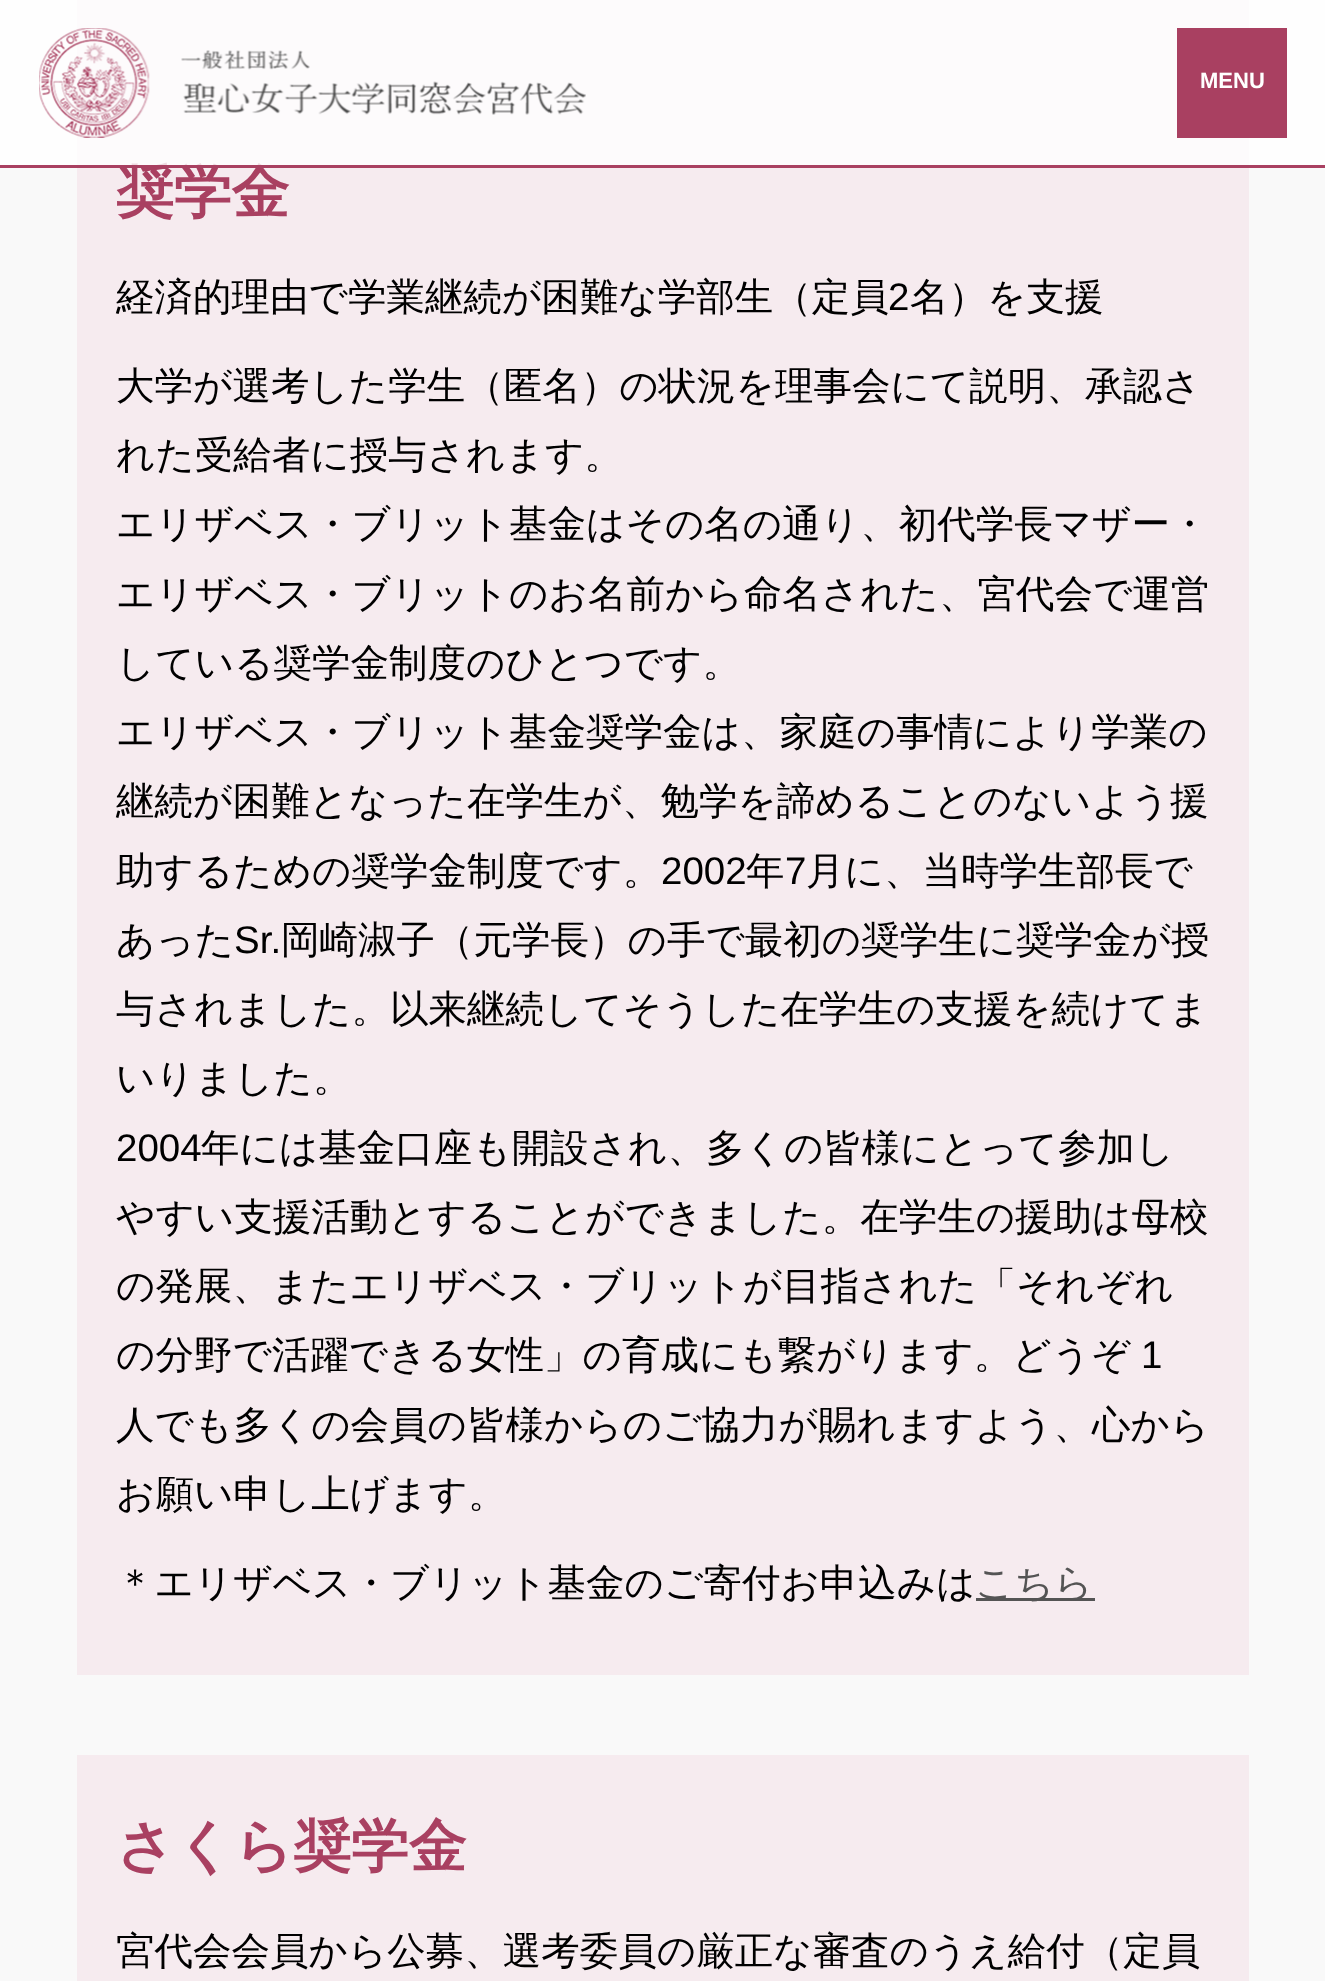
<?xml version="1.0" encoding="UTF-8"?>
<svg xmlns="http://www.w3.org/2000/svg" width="1325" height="1981">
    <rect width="100%" height="100%" fill="#F9F9F9"/>
    <rect x="77" y="0" width="1172" height="1675" fill="#F6EBEF"/>
    <text x="116" y="212" font-family="WenQuanYi Zen Hei" font-size="57.75" font-weight="700" fill="#A94061">奨学金</text>
    <rect x="0" y="0" width="1325" height="165" fill="#FFFFFF" fill-opacity="0.8"/>
    <rect x="0" y="165" width="1325" height="3" fill="#A94061"/>
    <image x="39" y="28" width="547" height="110" href="img_01.png"/>
    <rect x="1177" y="28" width="110" height="110" fill="#A94061"/>
    <text x="1200" y="88" font-family="Liberation Sans" font-size="22" font-weight="700" fill="#FFFFFF">MENU</text>
    <text x="116" y="310" font-family="WenQuanYi Zen Hei" font-size="38.5" font-weight="500" fill="#000000">経済的理由で学業継続が困難な学部生（定員</text>
    <text x="888" y="310" font-family="Liberation Sans" font-size="38.5" fill="#000000">2</text>
    <text x="910" y="310" font-family="WenQuanYi Zen Hei" font-size="38.5" font-weight="500" fill="#000000">名）を支援</text>
    <text font-family="WenQuanYi Zen Hei" font-size="38.5" font-weight="500" fill="#000000">
        <tspan x="116" y="399">大学が選考した学生（匿名）の状況を理事会にて説明、承認さ</tspan>
        <tspan x="116" y="468">れた受給者に授与されます。</tspan>
        <tspan x="116" y="537">エリザベス・ブリット基金はその名の通り、初代学長マザー・</tspan>
        <tspan x="116" y="607">エリザベス・ブリットのお名前から命名された、宮代会で運営</tspan>
        <tspan x="116" y="676">している奨学金制度のひとつです。</tspan>
        <tspan x="116" y="745">エリザベス・ブリット基金奨学金は、家庭の事情により学業の</tspan>
        <tspan x="116" y="814">継続が困難となった在学生が、勉学を諦めることのないよう援</tspan>
        <tspan x="116" y="884">助するための奨学金制度です。</tspan>
    </text>
    <text x="661" y="884" font-family="Liberation Sans" font-size="38.5" fill="#000000">2002</text>
    <text x="746" y="884" font-family="WenQuanYi Zen Hei" font-size="38.5" font-weight="500" fill="#000000">年</text>
    <text x="785" y="884" font-family="Liberation Sans" font-size="38.5" fill="#000000">7</text>
    <text x="806" y="884" font-family="WenQuanYi Zen Hei" font-size="38.5" font-weight="500" fill="#000000">月に、当時学生部長で</text>
    <text x="116" y="953" font-family="WenQuanYi Zen Hei" font-size="38.5" font-weight="500" fill="#000000">あった</text>
    <text x="234" y="953" font-family="Liberation Sans" font-size="38.5" fill="#000000">Sr.</text>
    <text x="281" y="953" font-family="WenQuanYi Zen Hei" font-size="38.5" font-weight="500" fill="#000000">岡崎淑子（元学長）の手で最初の奨学生に奨学金が授</text>
    <text font-family="WenQuanYi Zen Hei" font-size="38.5" font-weight="500" fill="#000000">
        <tspan x="116" y="1022">与されました。以来継続してそうした在学生の支援を続けてま</tspan>
        <tspan x="116" y="1091">いりました。</tspan>
    </text>
    <text x="116" y="1161" font-family="Liberation Sans" font-size="38.5" fill="#000000">2004</text>
    <text x="201" y="1161" font-family="WenQuanYi Zen Hei" font-size="38.5" font-weight="500" fill="#000000">年には基金口座も開設され、多くの皆様にとって参加し</text>
    <text font-family="WenQuanYi Zen Hei" font-size="38.5" font-weight="500" fill="#000000">
        <tspan x="116" y="1230">やすい支援活動とすることができました。在学生の援助は母校</tspan>
        <tspan x="116" y="1299">の発展、またエリザベス・ブリットが目指された「それぞれ</tspan>
        <tspan x="116" y="1368">の分野で活躍できる女性」の育成にも繋がります。どうぞ</tspan>
    </text>
    <text x="1141" y="1368" font-family="Liberation Sans" font-size="38.5" fill="#000000">1</text>
    <text font-family="WenQuanYi Zen Hei" font-size="38.5" font-weight="500" fill="#000000">
        <tspan x="116" y="1438">人でも多くの会員の皆様からのご協力が賜れますよう、心から</tspan>
        <tspan x="116" y="1507">お願い申し上げます。</tspan>
    </text>
    <text x="116" y="1596" font-family="WenQuanYi Zen Hei" font-size="38.5" font-weight="500" fill="#000000">＊エリザベス・ブリット基金のご寄付お申込みは</text>
    <rect x="976" y="1598" width="119" height="3" fill="#545454"/>
    <text x="975" y="1596" font-family="WenQuanYi Zen Hei" font-size="38.5" font-weight="500" fill="#545454">こちら</text>
    <rect x="77" y="1755" width="1172" height="226" fill="#F6EBEF"/>
    <text x="116" y="1866" font-family="WenQuanYi Zen Hei" font-size="57.75" font-weight="700" fill="#A94061">さくら奨学金</text>
    <text x="116" y="1964" font-family="WenQuanYi Zen Hei" font-size="38.5" font-weight="500" fill="#000000">宮代会会員から公募、選考委員の厳正な審査のうえ給付（定員</text>
</svg>
